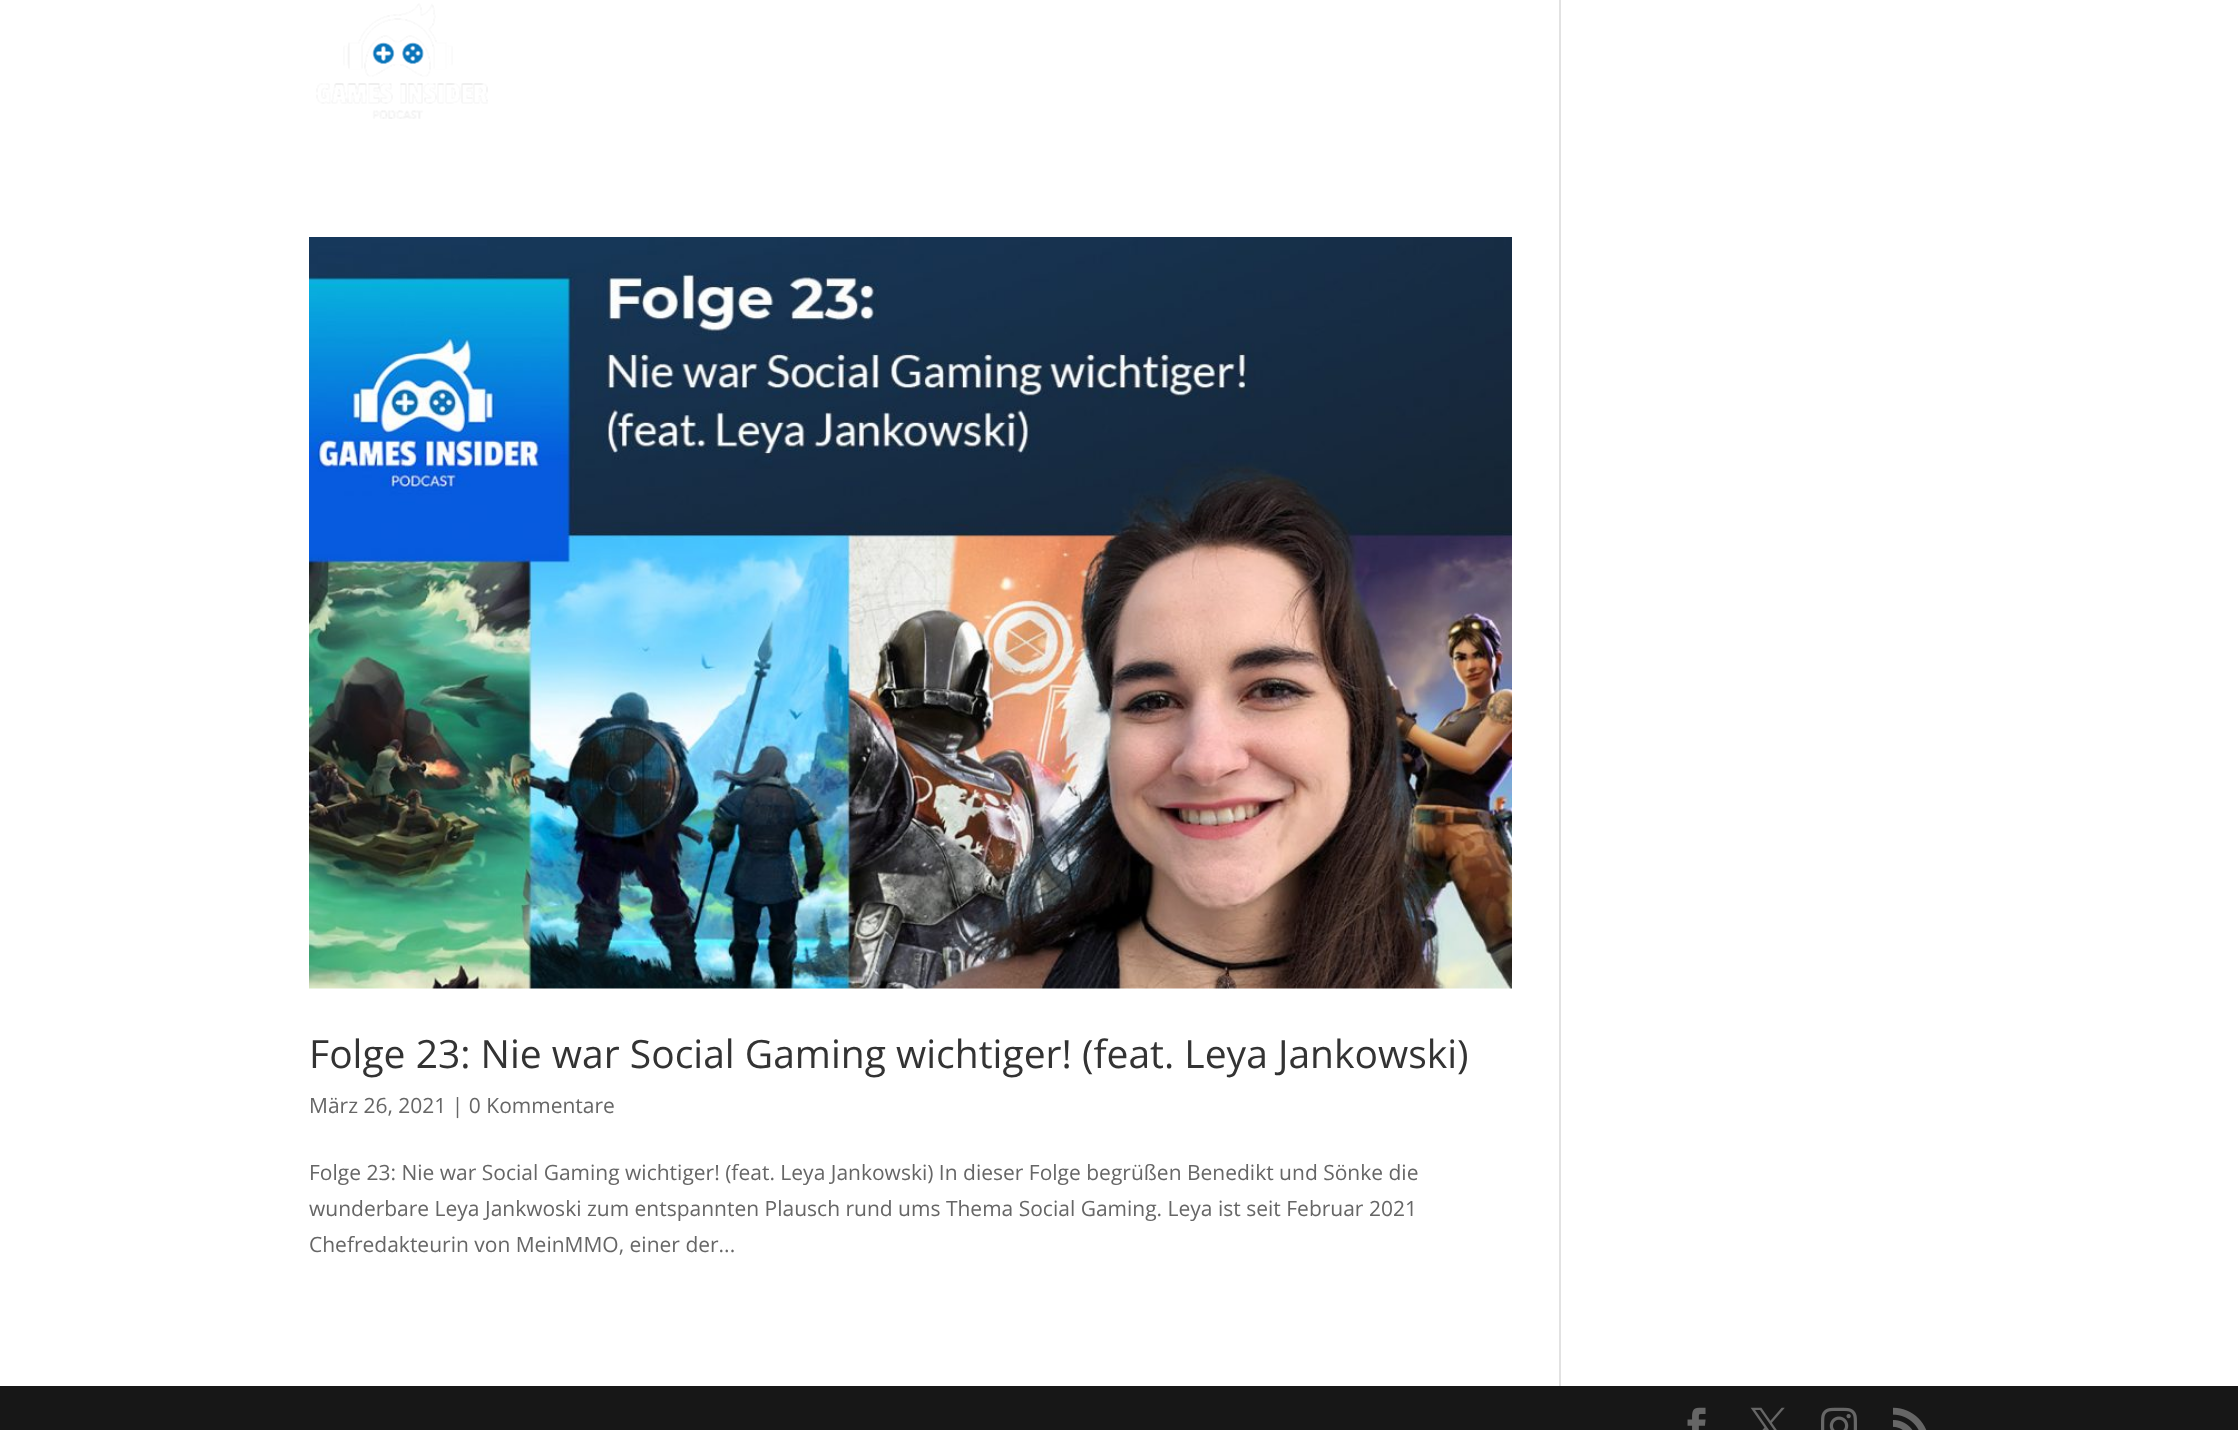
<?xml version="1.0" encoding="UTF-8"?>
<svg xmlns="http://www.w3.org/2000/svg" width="2238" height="1430">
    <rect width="100%" height="100%" fill="#FFFFFF"/>
    <image x="316" y="3" width="172" height="116" href="img_01.png"/>
    <image x="309" y="237" width="1203" height="752" href="img_02.png"/>
    <text x="309" y="1068" font-family="Open Sans" font-size="39" fill="#333333">Folge 23: Nie war Social Gaming wichtiger! (feat. Leya Jankowski)</text>
    <text x="309" y="1113" font-family="Open Sans" font-size="21" fill="#666666">März 26, 2021 | 0 Kommentare</text>
    <text font-family="Open Sans" font-size="21" fill="#666666">
        <tspan x="309" y="1180">Folge 23: Nie war Social Gaming wichtiger! (feat. Leya Jankowski) In dieser Folge begrüßen Benedikt und Sönke die</tspan>
        <tspan x="309" y="1216">wunderbare Leya Jankwoski zum entspannten Plausch rund ums Thema Social Gaming. Leya ist seit Februar 2021</tspan>
        <tspan x="309" y="1252">Chefredakteurin von MeinMMO, einer der...</tspan>
    </text>
    <rect x="1559" y="0" width="2" height="1386" fill="#E2E2E2"/>
    <rect x="0" y="1386" width="2238" height="44" fill="#171717"/>
    <image x="1687" y="1407" width="19" height="23" href="img_03.png"/>
    <image x="1750" y="1407" width="35" height="23" href="img_04.png"/>
    <image x="1821" y="1407" width="36" height="23" href="img_05.png"/>
    <image x="1893" y="1407" width="34" height="23" href="img_06.png"/>
</svg>
